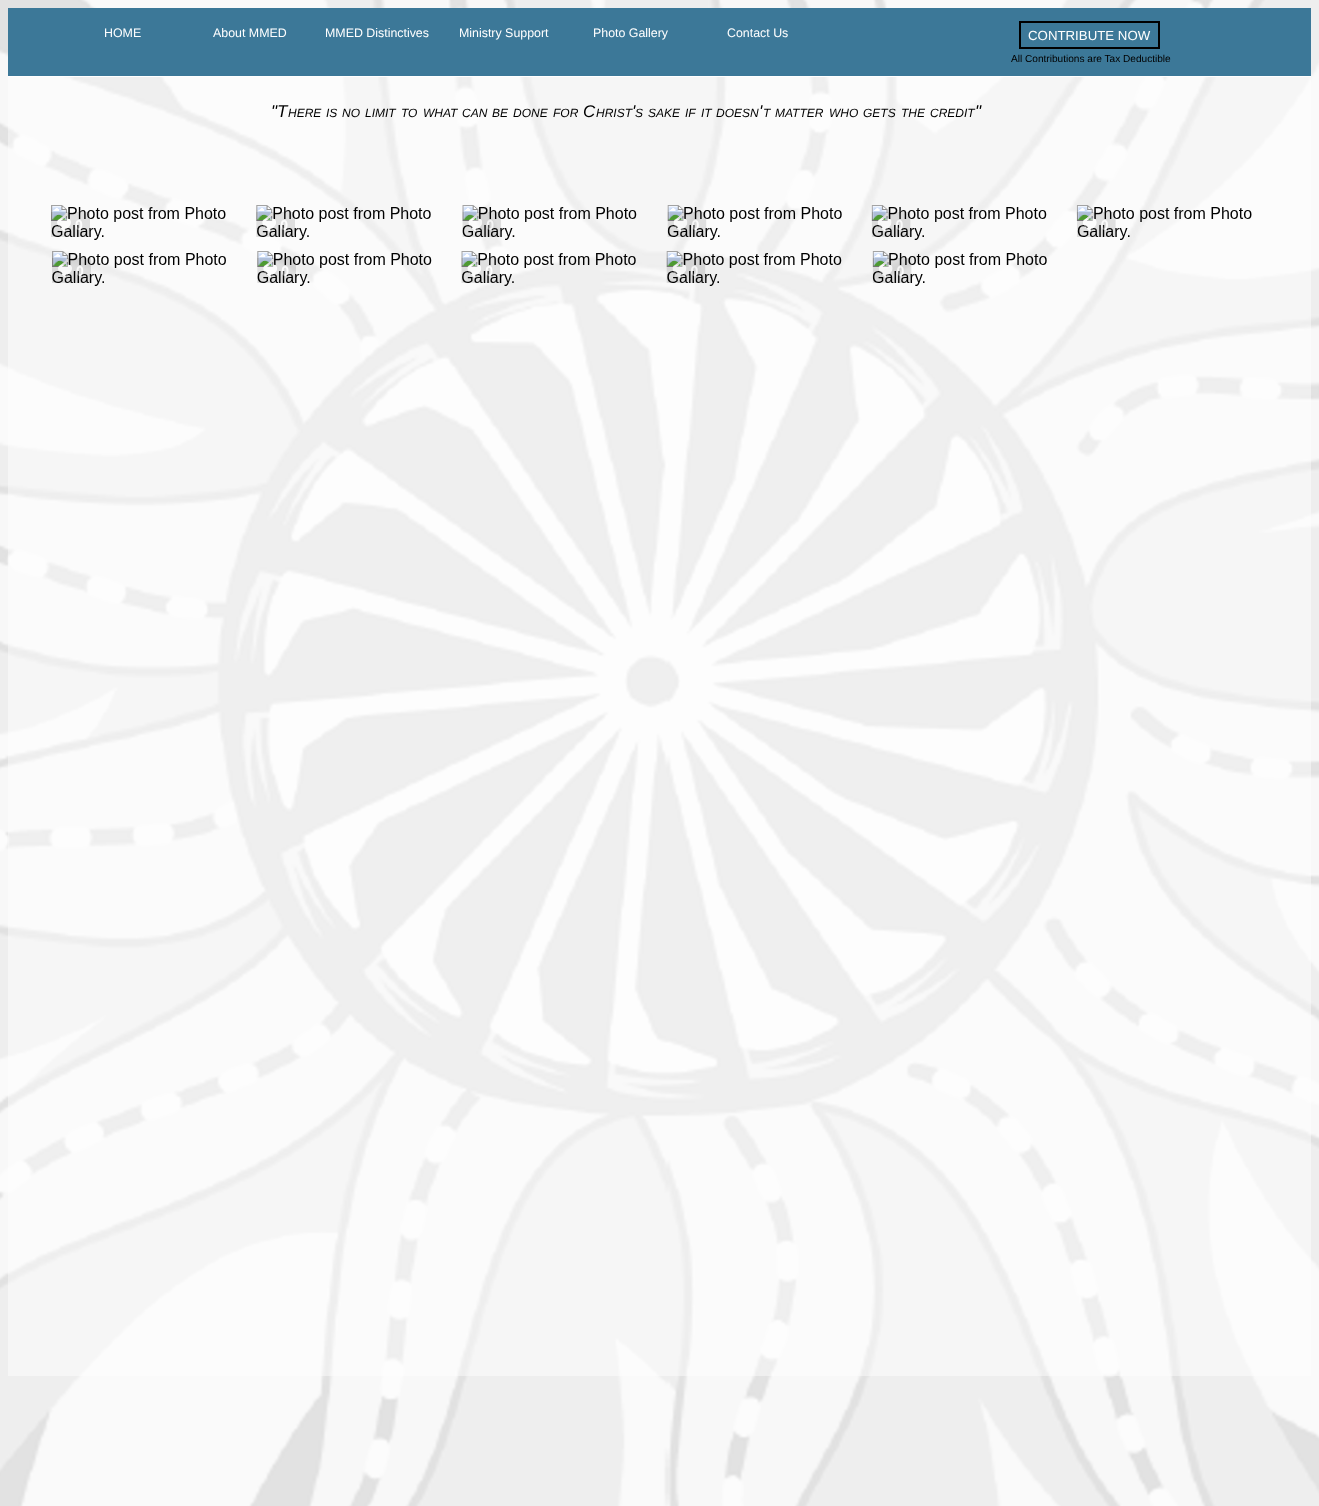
<?xml version="1.0" encoding="UTF-8"?>
<svg xmlns="http://www.w3.org/2000/svg" width="1319" height="1506">
    <rect width="100%" height="100%" fill="#FFFFFF"/>
    <image x="0" y="0" width="1319" height="1506" href="img_01.png"/>
    <rect x="8" y="77" width="1303" height="1299" fill="#FFFFFF" fill-opacity="0.45"/>
    <rect x="8" y="8" width="1303" height="68" fill="#3C7898"/>
    <rect x="8" y="76" width="1303" height="1" fill="#FFFFFF"/>
    <text x="104" y="37" font-family="Liberation Sans" font-size="12.4" fill="#FFFFFF">HOME</text>
    <text x="213" y="37" font-family="Liberation Sans" font-size="12.4" fill="#FFFFFF">About MMED</text>
    <text x="325" y="37" font-family="Liberation Sans" font-size="12.4" fill="#FFFFFF">MMED Distinctives</text>
    <text x="459" y="37" font-family="Liberation Sans" font-size="12.4" fill="#FFFFFF">Ministry Support</text>
    <text x="593" y="37" font-family="Liberation Sans" font-size="12.4" fill="#FFFFFF">Photo Gallery</text>
    <text x="727" y="37" font-family="Liberation Sans" font-size="12.4" fill="#FFFFFF">Contact Us</text>
    <rect x="1020" y="22" width="139" height="26" fill="none" stroke="#000000" stroke-width="2"/>
    <text x="1028" y="40" font-family="Liberation Sans" font-size="13.25" fill="#FFFFFF">CONTRIBUTE NOW</text>
    <text x="1011" y="62" font-family="Liberation Sans" font-size="10.1" fill="#000000">All Contributions are Tax Deductible</text>
    <text x="271" y="117" font-family="Liberation Sans" font-size="17" font-style="italic" fill="#000000">"T</text>
    <text x="583" y="117" font-family="Liberation Sans" font-size="17" font-style="italic" fill="#000000">C</text>
    <text x="632" y="117" font-family="Liberation Sans" font-size="17" font-style="italic" fill="#000000">'</text>
    <text x="759" y="117" font-family="Liberation Sans" font-size="17" font-style="italic" fill="#000000">'</text>
    <text x="975" y="117" font-family="Liberation Sans" font-size="17" font-style="italic" fill="#000000">"</text>
    <text x="288" y="117" font-family="Liberation Sans" font-size="12" font-style="italic" fill="#000000">HERE</text>
    <text x="326" y="117" font-family="Liberation Sans" font-size="12" font-style="italic" fill="#000000">IS</text>
    <text x="342" y="117" font-family="Liberation Sans" font-size="12" font-style="italic" fill="#000000">NO</text>
    <text x="365" y="117" font-family="Liberation Sans" font-size="12" font-style="italic" fill="#000000">LIMIT</text>
    <text x="401" y="117" font-family="Liberation Sans" font-size="12" font-style="italic" fill="#000000">TO</text>
    <text x="423" y="117" font-family="Liberation Sans" font-size="12" font-style="italic" fill="#000000">WHAT</text>
    <text x="462" y="117" font-family="Liberation Sans" font-size="12" font-style="italic" fill="#000000">CAN</text>
    <text x="492" y="117" font-family="Liberation Sans" font-size="12" font-style="italic" fill="#000000">BE</text>
    <text x="513" y="117" font-family="Liberation Sans" font-size="12" font-style="italic" fill="#000000">DONE</text>
    <text x="553" y="117" font-family="Liberation Sans" font-size="12" font-style="italic" fill="#000000">FOR</text>
    <text x="596" y="117" font-family="Liberation Sans" font-size="12" font-style="italic" fill="#000000">HRIST</text>
    <text x="635" y="117" font-family="Liberation Sans" font-size="12" font-style="italic" fill="#000000">S</text>
    <text x="648" y="117" font-family="Liberation Sans" font-size="12" font-style="italic" fill="#000000">SAKE</text>
    <text x="685" y="117" font-family="Liberation Sans" font-size="12" font-style="italic" fill="#000000">IF</text>
    <text x="701" y="117" font-family="Liberation Sans" font-size="12" font-style="italic" fill="#000000">IT</text>
    <text x="716" y="117" font-family="Liberation Sans" font-size="12" font-style="italic" fill="#000000">DOESN</text>
    <text x="763" y="117" font-family="Liberation Sans" font-size="12" font-style="italic" fill="#000000">T</text>
    <text x="775" y="117" font-family="Liberation Sans" font-size="12" font-style="italic" fill="#000000">MATTER</text>
    <text x="829" y="117" font-family="Liberation Sans" font-size="12" font-style="italic" fill="#000000">WHO</text>
    <text x="863" y="117" font-family="Liberation Sans" font-size="12" font-style="italic" fill="#000000">GETS</text>
    <text x="901" y="117" font-family="Liberation Sans" font-size="12" font-style="italic" fill="#000000">THE</text>
    <text x="930" y="117" font-family="Liberation Sans" font-size="12" font-style="italic" fill="#000000">CREDIT</text>
    <image x="51" y="205" width="1201" height="81" href="img_02.png"/>
</svg>
